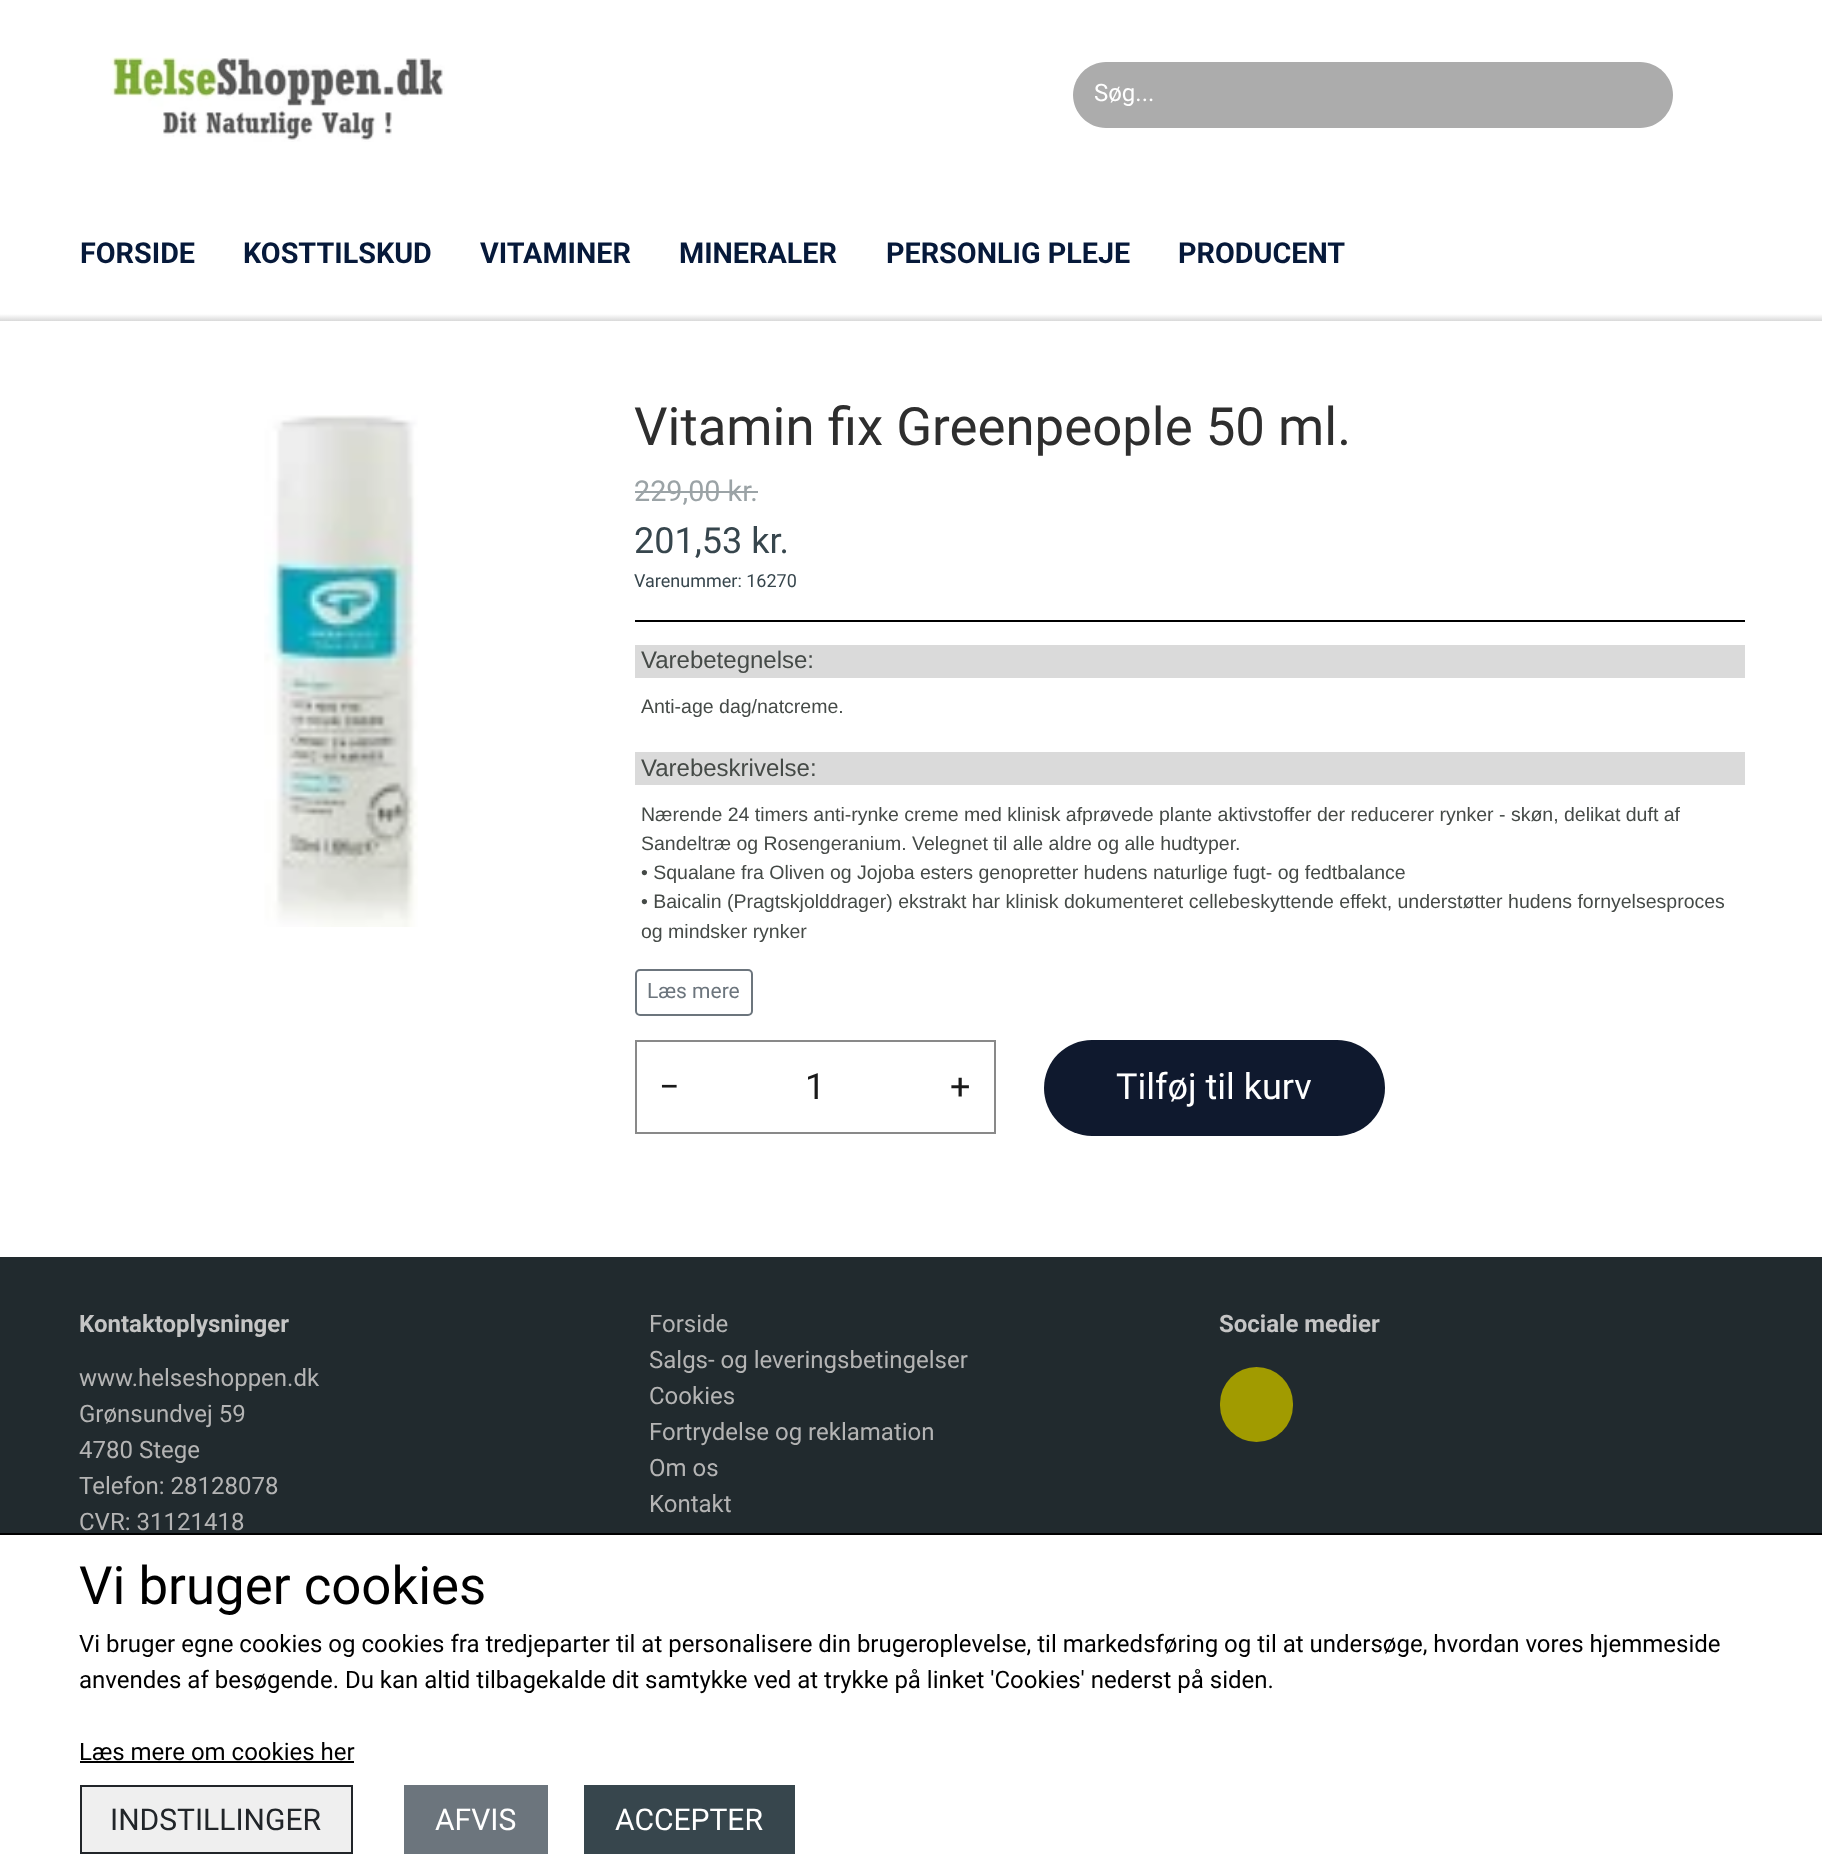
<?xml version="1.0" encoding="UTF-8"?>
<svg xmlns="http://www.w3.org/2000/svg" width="1822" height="1865">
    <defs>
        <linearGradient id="g1" gradientUnits="userSpaceOnUse" x1="911" y1="321" x2="911" y2="314"><stop offset="0" stop-color="#D9D9D9"/><stop offset="1" stop-color="#FFFFFF"/></linearGradient>
    </defs>
    <rect width="100%" height="100%" fill="#212A2E"/>
    <rect x="0" y="0" width="1822" height="314" fill="#FFFFFF"/>
    <image x="110" y="57" width="335" height="85" href="img_01.png"/>
    <path d="M 1637 62 H 1640 C 1658 62 1673 77 1673 95 C 1673 113 1658 128 1640 128 H 1637 Z" fill="#ACACAC"/>
    <path d="M 1106 62 H 1638 V 128 H 1106 C 1088 128 1073 113 1073 95 C 1073 77 1088 62 1106 62 Z" fill="#ACACAC"/>
    <text x="1094" y="101" font-family="Roboto" font-size="24" fill="#FFFFFF">Søg...</text>
    <text x="80" y="263" font-family="Roboto" font-size="28.75" font-weight="700" fill="#06193A">FORSIDE</text>
    <text x="243" y="263" font-family="Roboto" font-size="28.75" font-weight="700" fill="#06193A">KOSTTILSKUD</text>
    <text x="480" y="263" font-family="Roboto" font-size="28.75" font-weight="700" fill="#06193A">VITAMINER</text>
    <text x="679" y="263" font-family="Roboto" font-size="28.75" font-weight="700" fill="#06193A">MINERALER</text>
    <text x="886" y="263" font-family="Roboto" font-size="28.75" font-weight="700" fill="#06193A">PERSONLIG PLEJE</text>
    <text x="1178" y="263" font-family="Roboto" font-size="28.75" font-weight="700" fill="#06193A">PRODUCENT</text>
    <rect x="0" y="314" width="1822" height="7" fill="url(#g1)"/>
    <rect x="0" y="321" width="1822" height="936" fill="#FFFFFF"/>
    <image x="264" y="415" width="154" height="512" href="img_02.png"/>
    <text x="634" y="445" font-family="Roboto" font-size="52.75" fill="#2E2E2E">Vitamin fix Greenpeople 50 ml.</text>
    <text x="634" y="501" font-family="Roboto" font-size="28.75" fill="#9BA3A6">229,00 kr.</text>
    <rect x="635" y="491" width="123" height="2" fill="#9BA3A6"/>
    <text x="634" y="553" font-family="Roboto" font-size="36" fill="#37464D">201,53 kr.</text>
    <text x="634" y="587" font-family="Roboto" font-size="18" fill="#37464D">Varenummer: 16270</text>
    <rect x="635" y="620" width="1110" height="2" fill="#000000"/>
    <rect x="635" y="645" width="1110" height="33" fill="#DADADA"/>
    <text x="641" y="668" font-family="Liberation Sans" font-size="24" fill="#454A47">Varebetegnelse:</text>
    <text x="641" y="713" font-family="Liberation Sans" font-size="19.5" fill="#454A47">Anti-age dag/natcreme.</text>
    <rect x="635" y="752" width="1110" height="33" fill="#DADADA"/>
    <text x="641" y="776" font-family="Liberation Sans" font-size="24" fill="#454A47">Varebeskrivelse:</text>
    <text font-family="Liberation Sans" font-size="19.5" fill="#454A47">
        <tspan x="641" y="821">Nærende 24 timers anti-rynke creme med klinisk afprøvede plante aktivstoffer der reducerer rynker - skøn, delikat duft af</tspan>
        <tspan x="641" y="850">Sandeltræ og Rosengeranium. Velegnet til alle aldre og alle hudtyper.</tspan>
        <tspan x="641" y="879">• Squalane fra Oliven og Jojoba esters genopretter hudens naturlige fugt- og fedtbalance</tspan>
        <tspan x="641" y="908">• Baicalin (Pragtskjolddrager) ekstrakt har klinisk dokumenteret cellebeskyttende effekt, understøtter hudens fornyelsesproces</tspan>
        <tspan x="641" y="938">og mindsker rynker</tspan>
    </text>
    <rect x="636" y="970" width="116" height="45" rx="4" fill="none" stroke="#6C757D" stroke-width="2"/>
    <text x="647" y="998" font-family="Roboto" font-size="21" fill="#6C757D">Læs mere</text>
    <rect x="636" y="1041" width="359" height="92" fill="none" stroke="#898989" stroke-width="2"/>
    <text x="659" y="1099" font-family="Roboto" font-size="36" fill="#1A1A1A">−</text>
    <text x="805" y="1099" font-family="Roboto" font-size="36" fill="#1A1A1A">1</text>
    <text x="950" y="1099" font-family="Roboto" font-size="36" fill="#1A1A1A">+</text>
    <rect x="1044" y="1040" width="341" height="96" rx="48" fill="#0F192E"/>
    <text x="1116" y="1099" font-family="Roboto" font-size="36" fill="#FFFFFF">Tilføj til kurv</text>
    <text x="79" y="1332" font-family="Roboto" font-size="24" font-weight="700" fill="#C5C5C5">Kontaktoplysninger</text>
    <text font-family="Roboto" font-size="24" fill="#B4B4B4">
        <tspan x="79" y="1386">www.helseshoppen.dk</tspan>
        <tspan x="79" y="1422">Grønsundvej 59</tspan>
        <tspan x="79" y="1458">4780 Stege</tspan>
        <tspan x="79" y="1494">Telefon: 28128078</tspan>
        <tspan x="79" y="1530">CVR: 31121418</tspan>
    </text>
    <text font-family="Roboto" font-size="24" fill="#B4B4B4">
        <tspan x="649" y="1332">Forside</tspan>
        <tspan x="649" y="1368">Salgs- og leveringsbetingelser</tspan>
        <tspan x="649" y="1404">Cookies</tspan>
        <tspan x="649" y="1440">Fortrydelse og reklamation</tspan>
        <tspan x="649" y="1476">Om os</tspan>
        <tspan x="649" y="1512">Kontakt</tspan>
    </text>
    <text x="1219" y="1332" font-family="Roboto" font-size="24" font-weight="700" fill="#C5C5C5">Sociale medier</text>
    <rect x="1220" y="1367" width="73" height="75" rx="36.5" fill="#A19B00"/>
    <rect x="0" y="1535" width="1822" height="330" fill="#FFFFFF"/>
    <rect x="0" y="1533" width="1822" height="2" fill="#000000"/>
    <text x="79" y="1604" font-family="Roboto" font-size="52.75" fill="#000000">Vi bruger cookies</text>
    <text font-family="Roboto" font-size="24" fill="#000000">
        <tspan x="79" y="1652">Vi bruger egne cookies og cookies fra tredjeparter til at personalisere din brugeroplevelse, til markedsføring og til at undersøge, hvordan vores hjemmeside</tspan>
        <tspan x="79" y="1688">anvendes af besøgende. Du kan altid tilbagekalde dit samtykke ved at trykke på linket 'Cookies' nederst på siden.</tspan>
    </text>
    <text x="79" y="1760" font-family="Roboto" font-size="24" fill="#000000">Læs mere om cookies her</text>
    <rect x="80" y="1761" width="274" height="2" fill="#000000"/>
    <rect x="81" y="1786" width="271" height="67" fill="#EFEFEF" stroke="#212529" stroke-width="2"/>
    <text x="110" y="1830" font-family="Roboto" font-size="30" fill="#212529">INDSTILLINGER</text>
    <rect x="404" y="1785" width="144" height="69" fill="#6C757D"/>
    <text x="435" y="1830" font-family="Roboto" font-size="30" fill="#FFFFFF">AFVIS</text>
    <rect x="584" y="1785" width="211" height="69" fill="#37464D"/>
    <text x="615" y="1830" font-family="Roboto" font-size="30" fill="#FFFFFF">ACCEPTER</text>
</svg>
